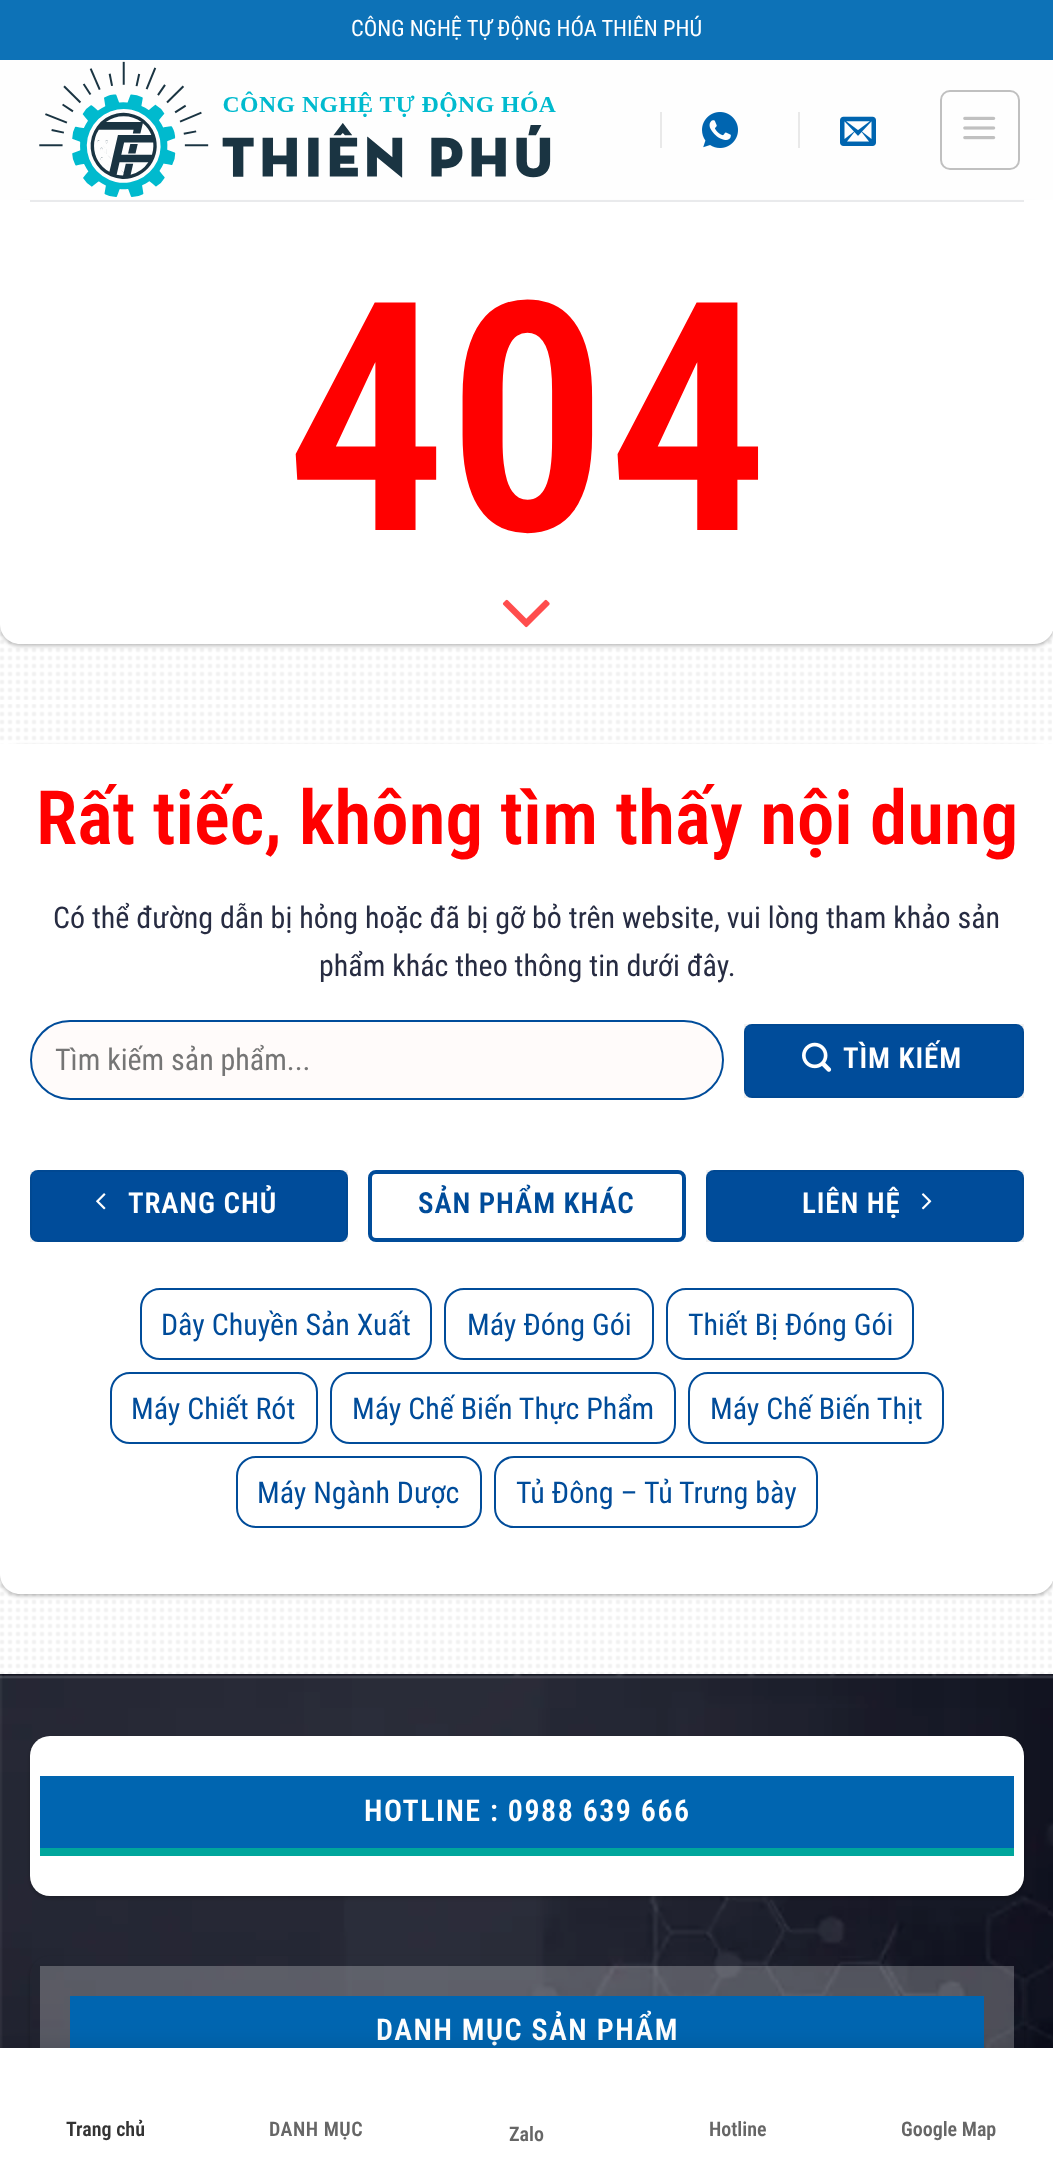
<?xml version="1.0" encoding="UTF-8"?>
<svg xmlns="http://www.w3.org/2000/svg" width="1053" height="2158">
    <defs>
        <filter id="blur1" x="-50%" y="-200%" width="200%" height="500%"><feGaussianBlur stdDeviation="2"/></filter>
        <filter id="blur2" x="-50%" y="-200%" width="200%" height="500%"><feGaussianBlur stdDeviation="3"/></filter>
        <clipPath id="clip1"><path d="M 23 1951 H 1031 V 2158 H 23 Z M 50 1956 H 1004 C 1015 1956 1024 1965 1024 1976 V 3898 C 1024 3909 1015 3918 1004 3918 H 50 C 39 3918 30 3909 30 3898 V 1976 C 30 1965 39 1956 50 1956 Z" clip-rule="evenodd"/></clipPath>
        <filter id="blur3" x="-50%" y="-200%" width="200%" height="500%"><feGaussianBlur stdDeviation="10"/></filter>
    </defs>
    <rect width="100%" height="100%" fill="#F1F3F4"/>
    <rect x="0" y="0" width="1053" height="60" fill="#0D72B7"/>
    <text x="351" y="36" font-family="Roboto Condensed" font-size="22.5" fill="#FFFFFF">CÔNG NGHỆ TỰ ĐỘNG HÓA THIÊN PHÚ</text>
    <rect x="0" y="624" width="1053" height="1050" fill="#FFFFFF"/>
    <image x="0" y="624" width="1052" height="76" href="img_05.png"/>
    <rect x="0" y="202" width="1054" height="444" rx="20" fill="#000000" fill-opacity="0.24" filter="url(#blur1)"/>
    <rect x="4" y="206" width="1046" height="436" rx="16" fill="#000000" fill-opacity="0.12" filter="url(#blur2)"/>
    <rect x="0" y="60" width="1053" height="140" fill="#FFFFFF" fill-opacity="0.9"/>
    <image x="39" y="61" width="517" height="136" href="img_01.png"/>
    <rect x="660" y="112" width="2" height="36" fill="#E9E9E9"/>
    <image x="702" y="112" width="36" height="36" href="img_02.png"/>
    <rect x="798" y="112" width="2" height="36" fill="#E9E9E9"/>
    <image x="840" y="116" width="36" height="30" href="img_03.png"/>
    <rect x="941" y="91" width="78" height="78" rx="9" fill="none" stroke="#C0C0C0" stroke-width="2"/>
    <image x="963" y="116" width="33" height="24" href="img_04.png"/>
    <path d="M 0 200 H 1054 V 624 C 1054 635 1045 644 1034 644 H 20 C 9 644 0 635 0 624 Z" fill="#FFFFFF"/>
    <rect x="30" y="200" width="994" height="2" fill="#E9EAEC"/>
    <text x="286" y="530" font-family="Roboto Condensed" font-size="320" font-weight="600" fill="#FF0000">404</text>
    <image x="502" y="599" width="48" height="29" href="img_06.png"/>
    <image x="0" y="704" width="1052" height="970" href="img_07.png"/>
    <rect x="0" y="746" width="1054" height="850" rx="20" fill="#000000" fill-opacity="0.24" filter="url(#blur1)"/>
    <rect x="4" y="750" width="1046" height="842" rx="16" fill="#000000" fill-opacity="0.12" filter="url(#blur2)"/>
    <path d="M 0 744 H 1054 V 1574 C 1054 1585 1045 1594 1034 1594 H 20 C 9 1594 0 1585 0 1574 Z" fill="#FFFFFF"/>
    <text x="36" y="844" font-family="Roboto Condensed" font-size="75" font-weight="600" fill="#FF0000">Rất tiếc, không tìm thấy nội dung</text>
    <text x="53" y="928" font-family="Roboto Condensed" font-size="30" fill="#272C42">Có thể đường dẫn bị hỏng hoặc đã bị gỡ bỏ trên website, vui lòng tham khảo sản</text>
    <text x="319" y="976" font-family="Roboto Condensed" font-size="30" fill="#272C42">phẩm khác theo thông tin dưới đây.</text>
    <rect x="31" y="1021" width="692" height="78" rx="39" fill="#FFFBFA" stroke="#004C9A" stroke-width="2"/>
    <text x="55" y="1070" font-family="Roboto Condensed" font-size="30" fill="#757575">Tìm kiếm sản phẩm...</text>
    <rect x="744" y="1024" width="280" height="74" rx="8" fill="#004C9A"/>
    <rect x="745" y="1025" width="278" height="72" fill="none" stroke="#000000" stroke-opacity="0.05" stroke-width="2"/>
    <image x="802" y="1042" width="30" height="30" href="img_08.png"/>
    <text x="843" y="1068" font-family="Roboto Condensed" font-size="29" font-weight="600" letter-spacing="0.9" fill="#FFFFFF">TÌM KIẾM</text>
    <rect x="30" y="1170" width="318" height="72" rx="8" fill="#004C9A"/>
    <rect x="31" y="1171" width="316" height="70" fill="none" stroke="#000000" stroke-opacity="0.05" stroke-width="2"/>
    <image x="96" y="1193" width="10" height="17" href="img_09.png"/>
    <text x="128" y="1213" font-family="Roboto Condensed" font-size="29" font-weight="600" letter-spacing="0.9" fill="#FFFFFF">TRANG CHỦ</text>
    <rect x="370" y="1172" width="314" height="68" rx="6" fill="none" stroke="#004C9A" stroke-width="4"/>
    <text x="418" y="1213" font-family="Roboto Condensed" font-size="29" font-weight="600" letter-spacing="0.9" fill="#004C9A">SẢN PHẨM KHÁC</text>
    <rect x="706" y="1170" width="318" height="72" rx="8" fill="#004C9A"/>
    <rect x="707" y="1171" width="316" height="70" fill="none" stroke="#000000" stroke-opacity="0.05" stroke-width="2"/>
    <text x="802" y="1213" font-family="Roboto Condensed" font-size="29" font-weight="600" letter-spacing="0.9" fill="#FFFFFF">LIÊN HỆ</text>
    <image x="921" y="1193" width="11" height="17" href="img_10.png"/>
    <rect x="141" y="1289" width="290" height="70" rx="19" fill="none" stroke="#004C9A" stroke-width="2"/>
    <text x="161" y="1335" font-family="Roboto Condensed" font-size="30" fill="#004C9A">Dây Chuyền Sản Xuất</text>
    <rect x="445" y="1289" width="208" height="70" rx="19" fill="none" stroke="#004C9A" stroke-width="2"/>
    <text x="467" y="1335" font-family="Roboto Condensed" font-size="30" fill="#004C9A">Máy Đóng Gói</text>
    <rect x="667" y="1289" width="246" height="70" rx="19" fill="none" stroke="#004C9A" stroke-width="2"/>
    <text x="688" y="1335" font-family="Roboto Condensed" font-size="30" fill="#004C9A">Thiết Bị Đóng Gói</text>
    <rect x="111" y="1373" width="206" height="70" rx="19" fill="none" stroke="#004C9A" stroke-width="2"/>
    <text x="131" y="1419" font-family="Roboto Condensed" font-size="30" fill="#004C9A">Máy Chiết Rót</text>
    <rect x="331" y="1373" width="344" height="70" rx="19" fill="none" stroke="#004C9A" stroke-width="2"/>
    <text x="352" y="1419" font-family="Roboto Condensed" font-size="30" fill="#004C9A">Máy Chế Biến Thực Phẩm</text>
    <rect x="689" y="1373" width="254" height="70" rx="19" fill="none" stroke="#004C9A" stroke-width="2"/>
    <text x="710" y="1419" font-family="Roboto Condensed" font-size="30" fill="#004C9A">Máy Chế Biến Thịt</text>
    <rect x="237" y="1457" width="244" height="70" rx="19" fill="none" stroke="#004C9A" stroke-width="2"/>
    <text x="257" y="1503" font-family="Roboto Condensed" font-size="30" fill="#004C9A">Máy Ngành Dược</text>
    <rect x="495" y="1457" width="322" height="70" rx="19" fill="none" stroke="#004C9A" stroke-width="2"/>
    <text x="516" y="1503" font-family="Roboto Condensed" font-size="30" fill="#004C9A">Tủ Đông – Tủ Trưng bày</text>
    <image x="0" y="1674" width="1053" height="374" href="img_11.png"/>
    <rect x="0" y="1674" width="1032" height="2" fill="#000000" fill-opacity="0.05"/>
    <rect x="30" y="1738" width="994" height="160" rx="20" fill="#000000" fill-opacity="0.24" filter="url(#blur1)"/>
    <rect x="30" y="1736" width="994" height="160" rx="20" fill="#FFFFFF"/>
    <rect x="40" y="1776" width="974" height="72" fill="#0065B0"/>
    <rect x="40" y="1848" width="974" height="8" fill="#00A69C"/>
    <text x="364" y="1821" font-family="Roboto Condensed" font-size="30" font-weight="600" letter-spacing="1.5" fill="#FFFFFF">HOTLINE : 0988 639 666</text>
    <g clip-path="url(#clip1)">
        <rect x="30" y="1958" width="994" height="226" rx="20" fill="#000000" fill-opacity="0.24" filter="url(#blur1)"/>
    </g>
    <rect x="40" y="1966" width="974" height="82" fill="#FFFFFF" fill-opacity="0.25"/>
    <rect x="70" y="1996" width="914" height="52" fill="#0065B0"/>
    <text x="376" y="2040" font-family="Roboto Condensed" font-size="30" font-weight="600" letter-spacing="1.5" fill="#FFFFFF">DANH MỤC SẢN PHẨM</text>
    <rect x="0" y="2044" width="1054" height="110" fill="#000000" fill-opacity="0.1" filter="url(#blur3)"/>
    <rect x="0" y="2048" width="1053" height="110" fill="#FFFFFF"/>
    <text x="66" y="2136" font-family="Roboto Condensed" font-size="20" font-weight="600" fill="#333333">Trang chủ</text>
    <text x="269" y="2136" font-family="Roboto Condensed" font-size="20" font-weight="600" letter-spacing="0.5" fill="#666666">DANH MỤC</text>
    <text x="509" y="2141" font-family="Roboto Condensed" font-size="20" font-weight="600" fill="#666666">Zalo</text>
    <text x="709" y="2136" font-family="Roboto Condensed" font-size="20" font-weight="600" fill="#666666">Hotline</text>
    <text x="901" y="2136" font-family="Roboto Condensed" font-size="20" font-weight="600" fill="#666666">Google Map</text>
</svg>
